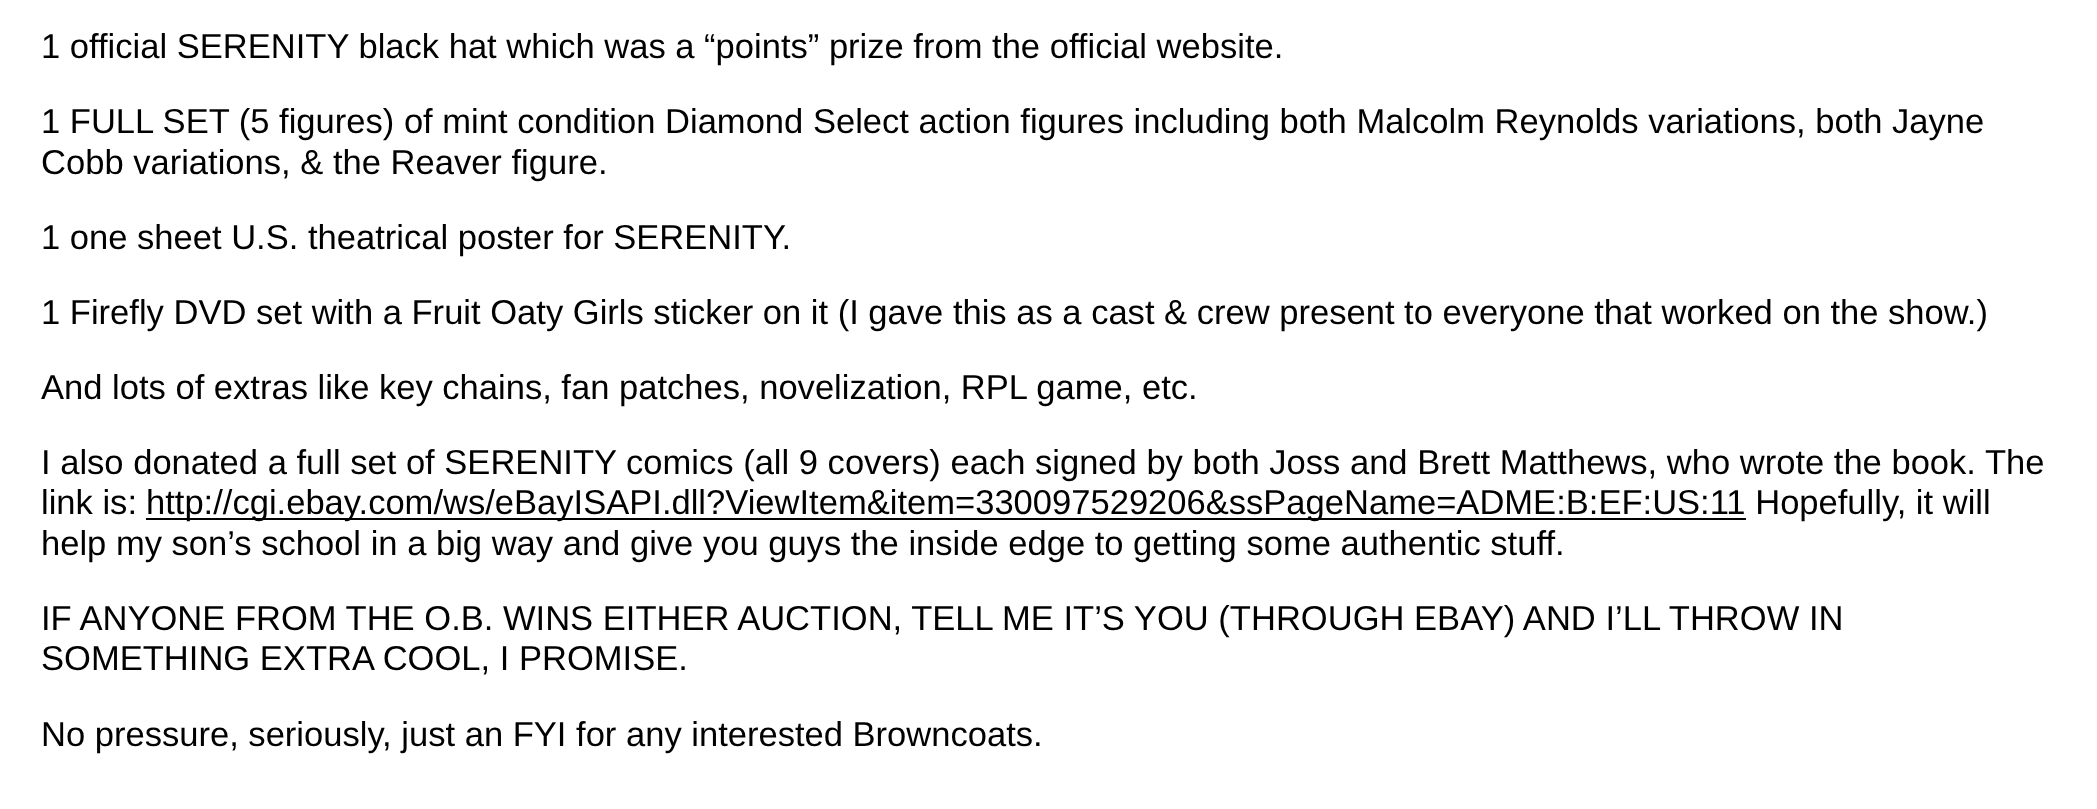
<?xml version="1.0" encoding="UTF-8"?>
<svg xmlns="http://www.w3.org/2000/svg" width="2097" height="809">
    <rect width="100%" height="100%" fill="#FFFFFF"/>
    <text x="41" y="58" font-family="Liberation Sans" font-size="34.55" fill="#000000">1 official SERENITY black hat which was a “points” prize from the official website.</text>
    <text font-family="Liberation Sans" font-size="34.55" fill="#000000">
        <tspan x="41" y="133">1 FULL SET (5 figures) of mint condition Diamond Select action figures including both Malcolm Reynolds variations, both Jayne</tspan>
        <tspan x="41" y="174">Cobb variations, &amp; the Reaver figure.</tspan>
    </text>
    <text x="41" y="249" font-family="Liberation Sans" font-size="34.55" fill="#000000">1 one sheet U.S. theatrical poster for SERENITY.</text>
    <text x="41" y="324" font-family="Liberation Sans" font-size="34.55" fill="#000000">1 Firefly DVD set with a Fruit Oaty Girls sticker on it (I gave this as a cast &amp; crew present to everyone that worked on the show.)</text>
    <text x="41" y="399" font-family="Liberation Sans" font-size="34.55" fill="#000000">And lots of extras like key chains, fan patches, novelization, RPL game, etc.</text>
    <text font-family="Liberation Sans" font-size="34.55" fill="#000000">
        <tspan x="41" y="474">I also donated a full set of SERENITY comics (all 9 covers) each signed by both Joss and Brett Matthews, who wrote the book. The</tspan>
        <tspan x="41" y="514">link is:</tspan>
    </text>
    <rect x="146" y="518" width="1600" height="2" fill="#000000"/>
    <text x="146" y="514" font-family="Liberation Sans" font-size="34.55" fill="#000000">http://cgi.ebay.com/ws/eBayISAPI.dll?ViewItem&amp;item=330097529206&amp;ssPageName=ADME:B:EF:US:11 Hopefully, it will</text>
    <text x="41" y="555" font-family="Liberation Sans" font-size="34.55" fill="#000000">help my son’s school in a big way and give you guys the inside edge to getting some authentic stuff.</text>
    <text font-family="Liberation Sans" font-size="34.55" fill="#000000">
        <tspan x="41" y="630">IF ANYONE FROM THE O.B. WINS EITHER AUCTION, TELL ME IT’S YOU (THROUGH EBAY) AND I’LL THROW IN</tspan>
        <tspan x="41" y="670">SOMETHING EXTRA COOL, I PROMISE.</tspan>
    </text>
    <text x="41" y="746" font-family="Liberation Sans" font-size="34.55" fill="#000000">No pressure, seriously, just an FYI for any interested Browncoats.</text>
</svg>
